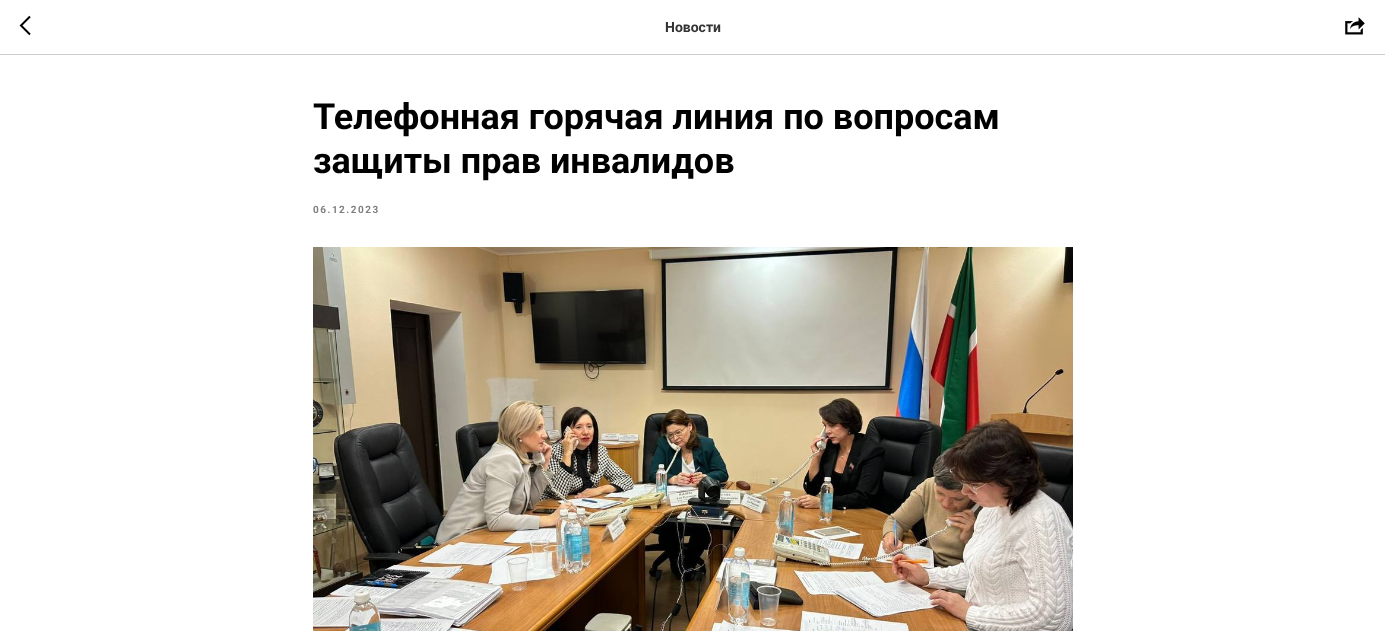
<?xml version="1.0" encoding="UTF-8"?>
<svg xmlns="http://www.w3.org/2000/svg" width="1385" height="631">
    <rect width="100%" height="100%" fill="#FFFFFF"/>
    <rect x="0" y="54" width="1385" height="1" fill="#CCCCCC"/>
    <path d="M 30 34.5 L 21 25.5 L 30 16.5" fill="none" stroke="#000000" stroke-width="2"/>
    <text x="665" y="32" font-family="Roboto" font-size="14" font-weight="700" fill="#333333">Новости</text>
    <image x="1345" y="17" width="20" height="18" href="img_01.png"/>
    <text font-family="Roboto" font-size="36" font-weight="700" fill="#000000">
        <tspan x="313" y="129">Телефонная горячая линия по вопросам</tspan>
        <tspan x="313" y="173">защиты прав инвалидов</tspan>
    </text>
    <text x="313" y="213" font-family="Roboto" font-size="10" font-weight="700" letter-spacing="1.5" fill="#808080">06.12.2023</text>
    <image x="313" y="247" width="760" height="384" href="img_02.png"/>
</svg>
